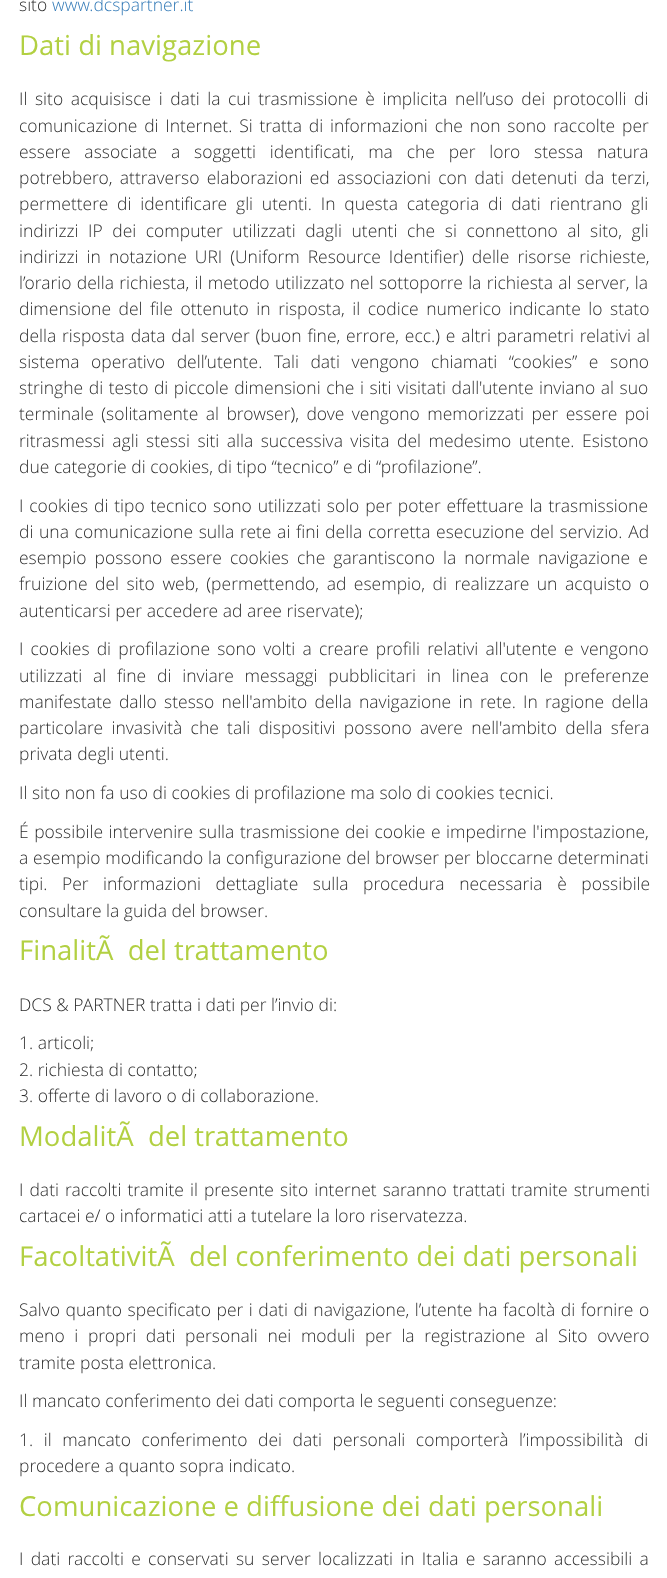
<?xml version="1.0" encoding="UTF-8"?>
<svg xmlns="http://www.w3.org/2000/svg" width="667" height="1578">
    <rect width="100%" height="100%" fill="#FFFFFF"/>
    <text x="19" y="11" font-family="Open Sans" font-size="17.5" font-weight="300" fill="#2C2C2C">sito</text>
    <text x="52" y="11" font-family="Open Sans" font-size="17.5" font-weight="300" fill="#337AB7">www.dcspartner.it</text>
    <text x="19" y="55" font-family="Open Sans" font-size="27.5" fill="#B2D042">Dati di navigazione</text>
    <text font-family="Open Sans" font-size="17.5" font-weight="300" fill="#2C2C2C">
        <tspan x="19" y="105" word-spacing="3">Il sito acquisisce i dati la cui trasmissione è implicita nell’uso dei protocolli di</tspan>
        <tspan x="19" y="132" word-spacing="2.25">comunicazione di Internet. Si tratta di informazioni che non sono raccolte per</tspan>
        <tspan x="19" y="158" word-spacing="9.25">essere associate a soggetti identificati, ma che per loro stessa natura</tspan>
        <tspan x="19" y="184" word-spacing="2.75">potrebbero, attraverso elaborazioni ed associazioni con dati detenuti da terzi,</tspan>
        <tspan x="19" y="210" word-spacing="4.25">permettere di identificare gli utenti. In questa categoria di dati rientrano gli</tspan>
        <tspan x="19" y="237" word-spacing="5">indirizzi IP dei computer utilizzati dagli utenti che si connettono al sito, gli</tspan>
        <tspan x="19" y="263" word-spacing="3.5">indirizzi in notazione URI (Uniform Resource Identifier) delle risorse richieste,</tspan>
        <tspan x="19" y="289" word-spacing="0.75">l’orario della richiesta, il metodo utilizzato nel sottoporre la richiesta al server, la</tspan>
        <tspan x="19" y="315" word-spacing="3">dimensione del file ottenuto in risposta, il codice numerico indicante lo stato</tspan>
        <tspan x="19" y="342" word-spacing="1.25">della risposta data dal server (buon fine, errore, ecc.) e altri parametri relativi al</tspan>
        <tspan x="19" y="368" word-spacing="7">sistema operativo dell’utente. Tali dati vengono chiamati “cookies” e sono</tspan>
        <tspan x="19" y="394" word-spacing="1">stringhe di testo di piccole dimensioni che i siti visitati dall'utente inviano al suo</tspan>
        <tspan x="19" y="420" word-spacing="2.9">terminale (solitamente al browser), dove vengono memorizzati per essere poi</tspan>
        <tspan x="19" y="447" word-spacing="2.9">ritrasmessi agli stessi siti alla successiva visita del medesimo utente. Esistono</tspan>
        <tspan x="19" y="473">due categorie di cookies, di tipo “tecnico” e di “profilazione”.</tspan>
    </text>
    <text font-family="Open Sans" font-size="17.5" font-weight="300" fill="#2C2C2C">
        <tspan x="19" y="512" word-spacing="1.25">I cookies di tipo tecnico sono utilizzati solo per poter effettuare la trasmissione</tspan>
        <tspan x="19" y="538" word-spacing="1.1">di una comunicazione sulla rete ai fini della corretta esecuzione del servizio. Ad</tspan>
        <tspan x="19" y="564" word-spacing="3.5">esempio possono essere cookies che garantiscono la normale navigazione e</tspan>
        <tspan x="19" y="590" word-spacing="3">fruizione del sito web, (permettendo, ad esempio, di realizzare un acquisto o</tspan>
        <tspan x="19" y="617">autenticarsi per accedere ad aree riservate);</tspan>
    </text>
    <text font-family="Open Sans" font-size="17.5" font-weight="300" fill="#2C2C2C">
        <tspan x="19" y="655" word-spacing="2.6">I cookies di profilazione sono volti a creare profili relativi all'utente e vengono</tspan>
        <tspan x="19" y="682" word-spacing="6.25">utilizzati al fine di inviare messaggi pubblicitari in linea con le preferenze</tspan>
        <tspan x="19" y="708" word-spacing="2.75">manifestate dallo stesso nell'ambito della navigazione in rete. In ragione della</tspan>
        <tspan x="19" y="734" word-spacing="3.75">particolare invasività che tali dispositivi possono avere nell'ambito della sfera</tspan>
        <tspan x="19" y="760">privata degli utenti.</tspan>
    </text>
    <text x="19" y="799" font-family="Open Sans" font-size="17.5" font-weight="300" fill="#2C2C2C">Il sito non fa uso di cookies di profilazione ma solo di cookies tecnici.</text>
    <text font-family="Open Sans" font-size="17.5" font-weight="300" fill="#2C2C2C">
        <tspan x="19" y="838" word-spacing="1">É possibile intervenire sulla trasmissione dei cookie e impedirne l'impostazione,</tspan>
        <tspan x="19" y="864" word-spacing="0.25">a esempio modificando la configurazione del browser per bloccarne determinati</tspan>
        <tspan x="19" y="890" word-spacing="10">tipi. Per informazioni dettagliate sulla procedura necessaria è possibile</tspan>
        <tspan x="19" y="917">consultare la guida del browser.</tspan>
    </text>
    <text x="19" y="960" font-family="Open Sans" font-size="27.5" fill="#B2D042" xml:space="preserve">FinalitÃ  del trattamento</text>
    <text x="19" y="1011" font-family="Open Sans" font-size="17.5" font-weight="300" fill="#2C2C2C">DCS &amp; PARTNER tratta i dati per l’invio di:</text>
    <text font-family="Open Sans" font-size="17.5" font-weight="300" fill="#2C2C2C">
        <tspan x="19" y="1049">1. articoli;</tspan>
        <tspan x="19" y="1076">2. richiesta di contatto;</tspan>
        <tspan x="19" y="1102">3. offerte di lavoro o di collaborazione.</tspan>
    </text>
    <text x="19" y="1146" font-family="Open Sans" font-size="27.5" fill="#B2D042" xml:space="preserve">ModalitÃ  del trattamento</text>
    <text font-family="Open Sans" font-size="17.5" font-weight="300" fill="#2C2C2C">
        <tspan x="19" y="1196" word-spacing="1.5">I dati raccolti tramite il presente sito internet saranno trattati tramite strumenti</tspan>
        <tspan x="19" y="1222">cartacei e/ o informatici atti a tutelare la loro riservatezza.</tspan>
    </text>
    <text x="19" y="1266" font-family="Open Sans" font-size="27.5" fill="#B2D042" xml:space="preserve">FacoltativitÃ  del conferimento dei dati personali</text>
    <text font-family="Open Sans" font-size="17.5" font-weight="300" fill="#2C2C2C">
        <tspan x="19" y="1316" word-spacing="1">Salvo quanto specificato per i dati di navigazione, l’utente ha facoltà di fornire o</tspan>
        <tspan x="19" y="1342" word-spacing="5.1">meno i propri dati personali nei moduli per la registrazione al Sito ovvero</tspan>
        <tspan x="19" y="1369">tramite posta elettronica.</tspan>
    </text>
    <text x="19" y="1407" font-family="Open Sans" font-size="17.5" font-weight="300" fill="#2C2C2C">Il mancato conferimento dei dati comporta le seguenti conseguenze:</text>
    <text font-family="Open Sans" font-size="17.5" font-weight="300" fill="#2C2C2C">
        <tspan x="19" y="1446" word-spacing="6">1. il mancato conferimento dei dati personali comporterà l’impossibilità di</tspan>
        <tspan x="19" y="1472">procedere a quanto sopra indicato.</tspan>
    </text>
    <text x="19" y="1516" font-family="Open Sans" font-size="27.5" fill="#B2D042">Comunicazione e diffusione dei dati personali</text>
    <text x="19" y="1565" word-spacing="2.75" font-family="Open Sans" font-size="17.5" font-weight="300" fill="#2C2C2C">I dati raccolti e conservati su server localizzati in Italia e saranno accessibili a</text>
</svg>
